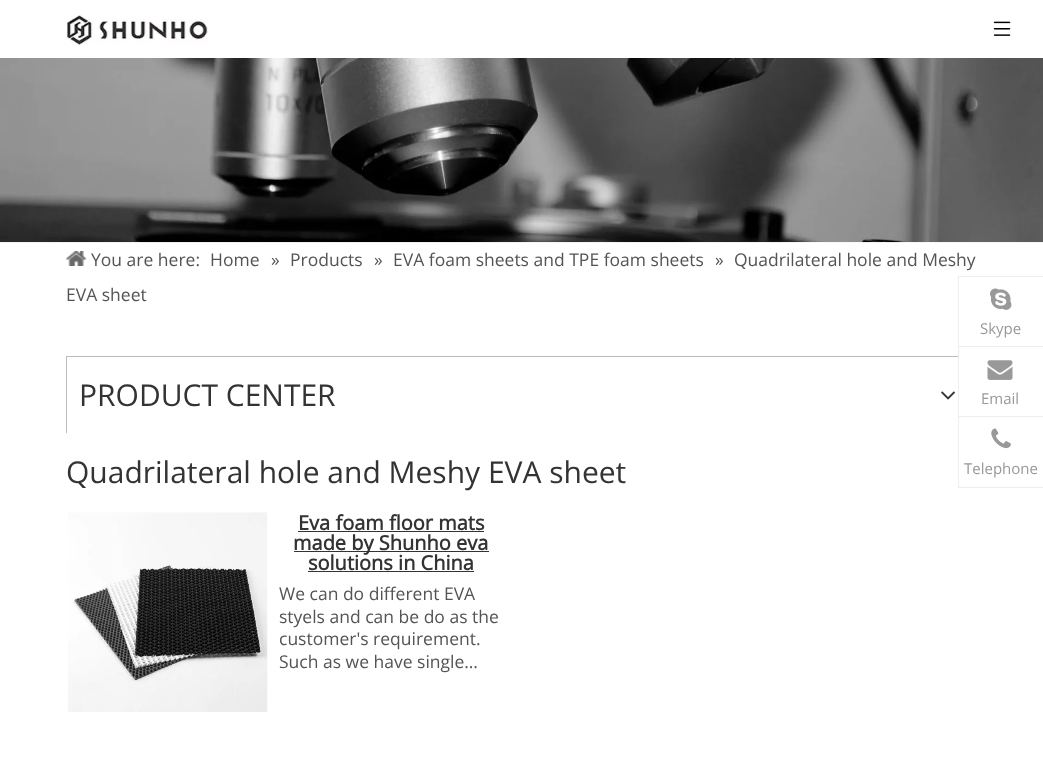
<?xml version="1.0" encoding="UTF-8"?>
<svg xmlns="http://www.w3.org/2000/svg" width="1043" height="761">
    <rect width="100%" height="100%" fill="#FFFFFF"/>
    <image x="65" y="15" width="143" height="30" href="img_01.png"/>
    <image x="993" y="21" width="18" height="15" href="img_02.png"/>
    <image x="0" y="58" width="1043" height="185" href="img_03.png"/>
    <image x="66" y="251" width="21" height="15" href="img_04.png"/>
    <text x="91" y="266" font-family="Open Sans" font-size="17.5" fill="#545454">You are here:</text>
    <text x="210" y="266" font-family="Open Sans" font-size="17.5" fill="#545454">Home</text>
    <text x="271" y="266" font-family="Open Sans" font-size="17.5" fill="#545454">»</text>
    <text x="290" y="266" font-family="Open Sans" font-size="17.5" fill="#545454">Products</text>
    <text x="374" y="266" font-family="Open Sans" font-size="17.5" fill="#545454">»</text>
    <text x="393" y="266" font-family="Open Sans" font-size="17.5" fill="#545454">EVA foam sheets and TPE foam sheets</text>
    <text x="715" y="266" font-family="Open Sans" font-size="17.5" fill="#545454">»</text>
    <text x="734" y="266" font-family="Open Sans" font-size="17.5" fill="#545454">Quadrilateral hole and Meshy</text>
    <text x="66" y="301" font-family="Open Sans" font-size="17.5" fill="#545454">EVA sheet</text>
    <rect x="66" y="356" width="892" height="1" fill="#BBBBBB"/>
    <rect x="66" y="356" width="1" height="77" fill="#BBBBBB"/>
    <text x="79" y="406" font-family="Open Sans" font-size="30" fill="#333333">PRODUCT CENTER</text>
    <image x="941" y="391" width="14" height="9" href="img_05.png"/>
    <text x="66" y="483" font-family="Open Sans" font-size="30" fill="#333333">Quadrilateral hole and Meshy EVA sheet</text>
    <image x="68" y="512" width="200" height="200" href="img_06.png"/>
    <text x="298" y="530" font-family="Open Sans" font-size="20" font-weight="700" fill="#333333">Eva foam floor mats</text>
    <rect x="298" y="531" width="186" height="1" fill="#333333"/>
    <rect x="294" y="551" width="195" height="1" fill="#333333"/>
    <text x="293" y="550" font-family="Open Sans" font-size="20" font-weight="700" fill="#333333">made by Shunho eva</text>
    <text x="308" y="570" font-family="Open Sans" font-size="20" font-weight="700" fill="#333333">solutions in China</text>
    <rect x="308" y="571" width="166" height="1" fill="#333333"/>
    <text font-family="Open Sans" font-size="17.5" fill="#545454">
        <tspan x="279" y="600">We can do different EVA</tspan>
        <tspan x="279" y="623">styels and can be do as the</tspan>
        <tspan x="279" y="645">customer's requirement.</tspan>
        <tspan x="279" y="668">Such as we have single…</tspan>
    </text>
    <rect x="958" y="276" width="85" height="1" fill="#EEEEEE"/>
    <rect x="958" y="276" width="1" height="70" fill="#EEEEEE"/>
    <image x="990" y="288" width="22" height="22" href="img_07.png"/>
    <text x="980" y="334" font-family="Open Sans" font-size="15" fill="#999999">Skype</text>
    <rect x="958" y="346" width="85" height="1" fill="#EEEEEE"/>
    <rect x="958" y="346" width="1" height="70" fill="#EEEEEE"/>
    <image x="987" y="360" width="26" height="20" href="img_08.png"/>
    <text x="981" y="404" font-family="Open Sans" font-size="15" fill="#999999">Email</text>
    <rect x="958.5" y="416.5" width="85" height="71" fill="none" stroke="#EEEEEE"/>
    <image x="991" y="428" width="20" height="21" href="img_09.png"/>
    <text x="964" y="474" font-family="Open Sans" font-size="15" fill="#999999">Telephone</text>
</svg>
